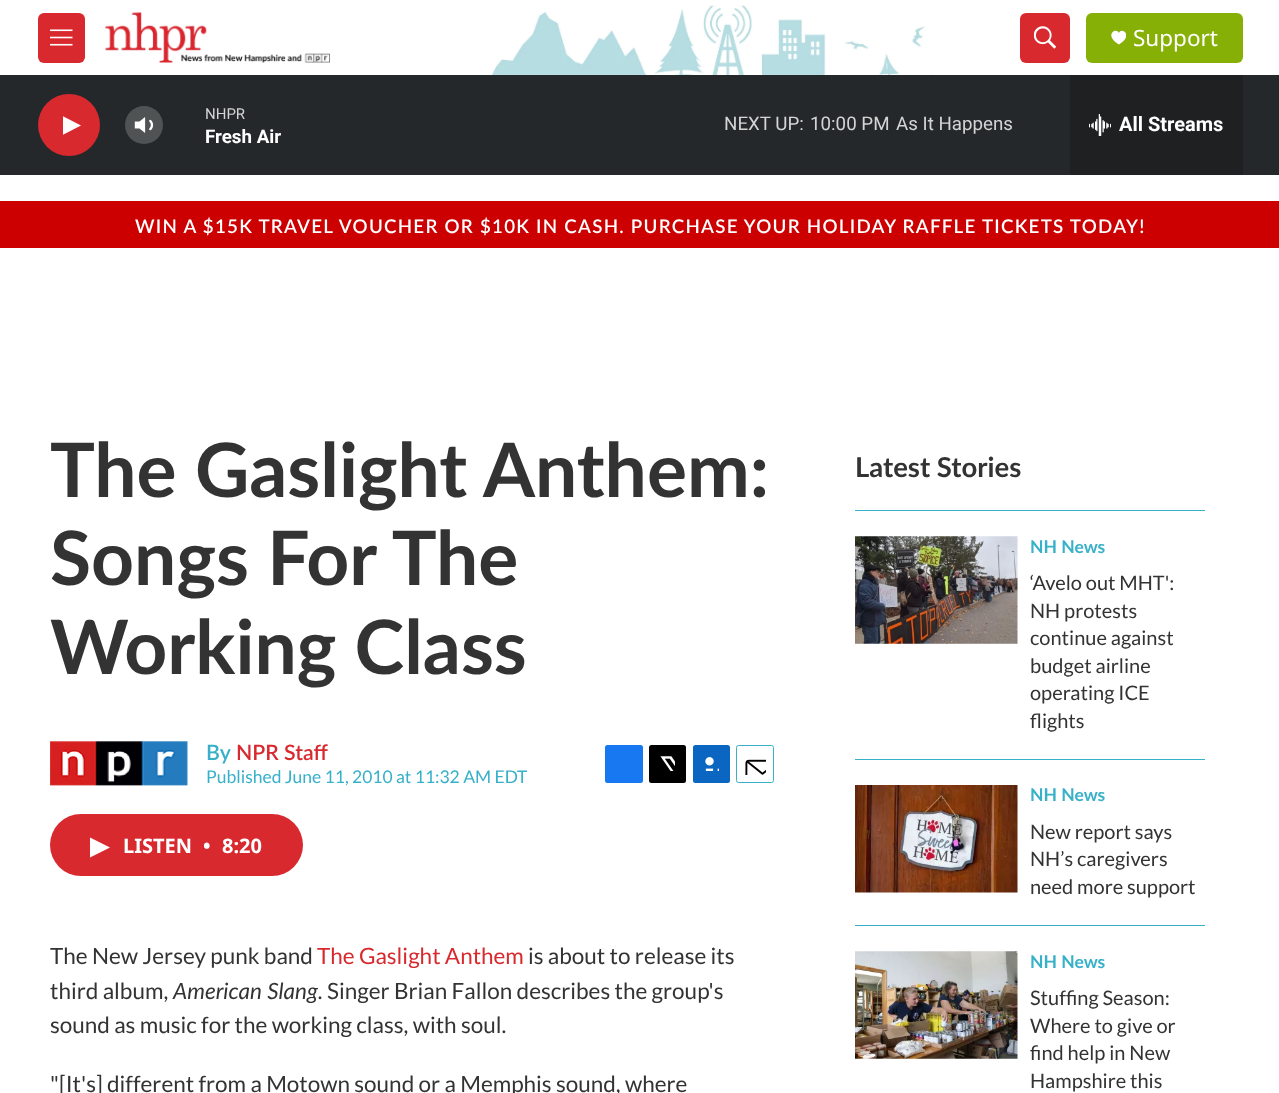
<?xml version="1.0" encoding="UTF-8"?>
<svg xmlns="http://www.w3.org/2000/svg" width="1279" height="1093">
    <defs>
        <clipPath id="clip1"><rect x="1111" y="30" width="15" height="15"/></clipPath>
        <clipPath id="clip2"><rect x="63" y="114" width="18" height="24"/></clipPath>
    </defs>
    <rect width="100%" height="100%" fill="#FFFFFF"/>
    <image x="491" y="5" width="441" height="70" href="img_01.png"/>
    <rect x="38" y="13" width="47" height="50" rx="6" fill="#D8292F"/>
    <image x="50" y="29" width="23" height="17" href="img_02.png"/>
    <image x="105" y="12" width="225" height="51" href="img_03.png"/>
    <rect x="1020" y="13" width="50" height="50" rx="6" fill="#D8292F"/>
    <image x="1034" y="26" width="22" height="23" href="img_04.png"/>
    <rect x="1086" y="13" width="157" height="50" rx="6" fill="#87B006"/>
    <g clip-path="url(#clip1)">
        <path d="M 1119 33 C 1116.5 26.5 1103 35 1119 44.5 C 1134.5 35 1121 26.5 1119 33 Z" fill="#FFFFFF"/>
    </g>
    <text x="1133" y="46" font-family="Noto Sans" font-size="22.5" fill="#FFFFFF">Support</text>
    <rect x="0" y="75" width="1279" height="100" fill="#25282A"/>
    <circle cx="69" cy="125" r="31" fill="#D8292F"/>
    <g clip-path="url(#clip2)">
        <path d="M 62.5 116 L 81 125.5 L 62.5 135 Z" fill="#FFFFFF"/>
    </g>
    <image x="134" y="117" width="20" height="16" href="img_05.png"/>
    <circle cx="144" cy="125" r="19" fill="#FFFFFF" fill-opacity="0.2"/>
    <text x="205" y="119" font-family="Roboto" font-size="15" fill="#D3D4D4">NHPR</text>
    <text x="205" y="143" font-family="Roboto" font-size="18.75" font-weight="700" fill="#FFFFFF">Fresh Air</text>
    <text x="724" y="130" font-family="Roboto" font-size="18.75" fill="#D3D4D4">NEXT UP:</text>
    <text x="810" y="130" font-family="Roboto" font-size="18.75" fill="#D3D4D4">10:00 PM</text>
    <text x="896" y="130" font-family="Roboto" font-size="18.75" fill="#D3D4D4">As It Happens</text>
    <rect x="1070" y="75" width="173" height="100" fill="#1E2022"/>
    <image x="1089" y="114" width="22" height="22" href="img_06.png"/>
    <text x="1119" y="131" font-family="Roboto" font-size="20" font-weight="700" fill="#FFFFFF">All Streams</text>
    <rect x="0" y="201" width="1279" height="47" fill="#CC0000"/>
    <text x="135" y="233" font-family="Lato" font-size="18.75" font-weight="600" letter-spacing="1.25" fill="#FFFFFF">WIN A $15K TRAVEL VOUCHER OR $10K IN CASH. PURCHASE YOUR HOLIDAY RAFFLE TICKETS TODAY!</text>
    <text font-family="Lato" font-size="75" font-weight="700" fill="#333333">
        <tspan x="50" y="497">The Gaslight Anthem:</tspan>
        <tspan x="50" y="585">Songs For The</tspan>
        <tspan x="50" y="674">Working Class</tspan>
    </text>
    <image x="50" y="741" width="138" height="45" href="img_07.png"/>
    <text x="206" y="760" font-family="Lato" font-size="21.25" font-weight="600" fill="#37B0C9">By</text>
    <text x="236" y="760" font-family="Lato" font-size="21.25" font-weight="600" fill="#D8292F">NPR Staff</text>
    <text x="206" y="783" font-family="Lato" font-size="17.5" fill="#37B0C9">Published June 11, 2010 at 11:32 AM EDT</text>
    <rect x="605" y="745" width="38" height="38" rx="2.5" fill="#1778F2"/>
    <rect x="649" y="745" width="37" height="38" rx="2.5" fill="#000000"/>
    <image x="660" y="756" width="15" height="15" href="img_08.png"/>
    <rect x="693" y="745" width="37" height="38" rx="2.5" fill="#0A66C1"/>
    <image x="705" y="757" width="14" height="14" href="img_09.png"/>
    <rect x="736.5" y="745.5" width="37" height="37" rx="2" fill="none" stroke="#37B0C9"/>
    <image x="745" y="759" width="21" height="16" href="img_10.png"/>
    <rect x="50" y="814" width="253" height="62" rx="31" fill="#D8292F"/>
    <path d="M 90 837.5 L 110 847.5 L 90 857.5 Z" fill="#FFFFFF"/>
    <text x="123" y="853" font-family="Noto Sans" font-size="20" font-weight="700" fill="#FFFFFF">LISTEN</text>
    <text x="203" y="853" font-family="Noto Sans" font-size="20" font-weight="700" fill="#FFFFFF">•</text>
    <text x="222" y="853" font-family="Noto Sans" font-size="20" font-weight="700" fill="#FFFFFF">8:20</text>
    <text x="50" y="964" font-family="Lato" font-size="22.5" fill="#333333">The New Jersey punk band</text>
    <text x="317" y="964" font-family="Lato" font-size="22.5" fill="#D8292F">The Gaslight Anthem</text>
    <text x="528" y="964" font-family="Lato" font-size="22.5" fill="#333333">is about to release its</text>
    <text x="50" y="999" font-family="Lato" font-size="22.5" fill="#333333">third album,</text>
    <text x="173" y="999" font-family="Lato" font-size="22.5" font-style="italic" fill="#333333">American Slang.</text>
    <text x="327" y="999" font-family="Lato" font-size="22.5" fill="#333333">Singer Brian Fallon describes the group's</text>
    <text x="50" y="1033" font-family="Lato" font-size="22.5" fill="#333333">sound as music for the working class, with soul.</text>
    <text x="50" y="1092" font-family="Lato" font-size="22.5" fill="#333333">"[It's] different from a Motown sound or a Memphis sound, where</text>
    <rect x="855" y="510" width="350" height="1" fill="#37B0C9"/>
    <text x="855" y="477" font-family="Lato" font-size="27.5" font-weight="700" fill="#333333">Latest Stories</text>
    <rect x="855" y="759" width="350" height="1" fill="#37B0C9"/>
    <image x="855" y="536" width="163" height="108" href="img_11.png"/>
    <text x="1030" y="553" font-family="Lato" font-size="17.5" font-weight="700" fill="#37B0C9">NH News</text>
    <text font-family="Lato" font-size="20" fill="#333333">
        <tspan x="1030" y="590">‘Avelo out MHT':</tspan>
        <tspan x="1030" y="618">NH protests</tspan>
        <tspan x="1030" y="645">continue against</tspan>
        <tspan x="1030" y="673">budget airline</tspan>
        <tspan x="1030" y="700">operating ICE</tspan>
        <tspan x="1030" y="728">flights</tspan>
    </text>
    <rect x="855" y="925" width="350" height="1" fill="#37B0C9"/>
    <image x="855" y="785" width="163" height="108" href="img_12.png"/>
    <text x="1030" y="801" font-family="Lato" font-size="17.5" font-weight="700" fill="#37B0C9">NH News</text>
    <text font-family="Lato" font-size="20" fill="#333333">
        <tspan x="1030" y="839">New report says</tspan>
        <tspan x="1030" y="866">NH’s caregivers</tspan>
        <tspan x="1030" y="894">need more support</tspan>
    </text>
    <image x="855" y="951" width="163" height="108" href="img_13.png"/>
    <text x="1030" y="968" font-family="Lato" font-size="17.5" font-weight="700" fill="#37B0C9">NH News</text>
    <text font-family="Lato" font-size="20" fill="#333333">
        <tspan x="1030" y="1005">Stuffing Season:</tspan>
        <tspan x="1030" y="1033">Where to give or</tspan>
        <tspan x="1030" y="1060">find help in New</tspan>
        <tspan x="1030" y="1088">Hampshire this</tspan>
    </text>
</svg>
